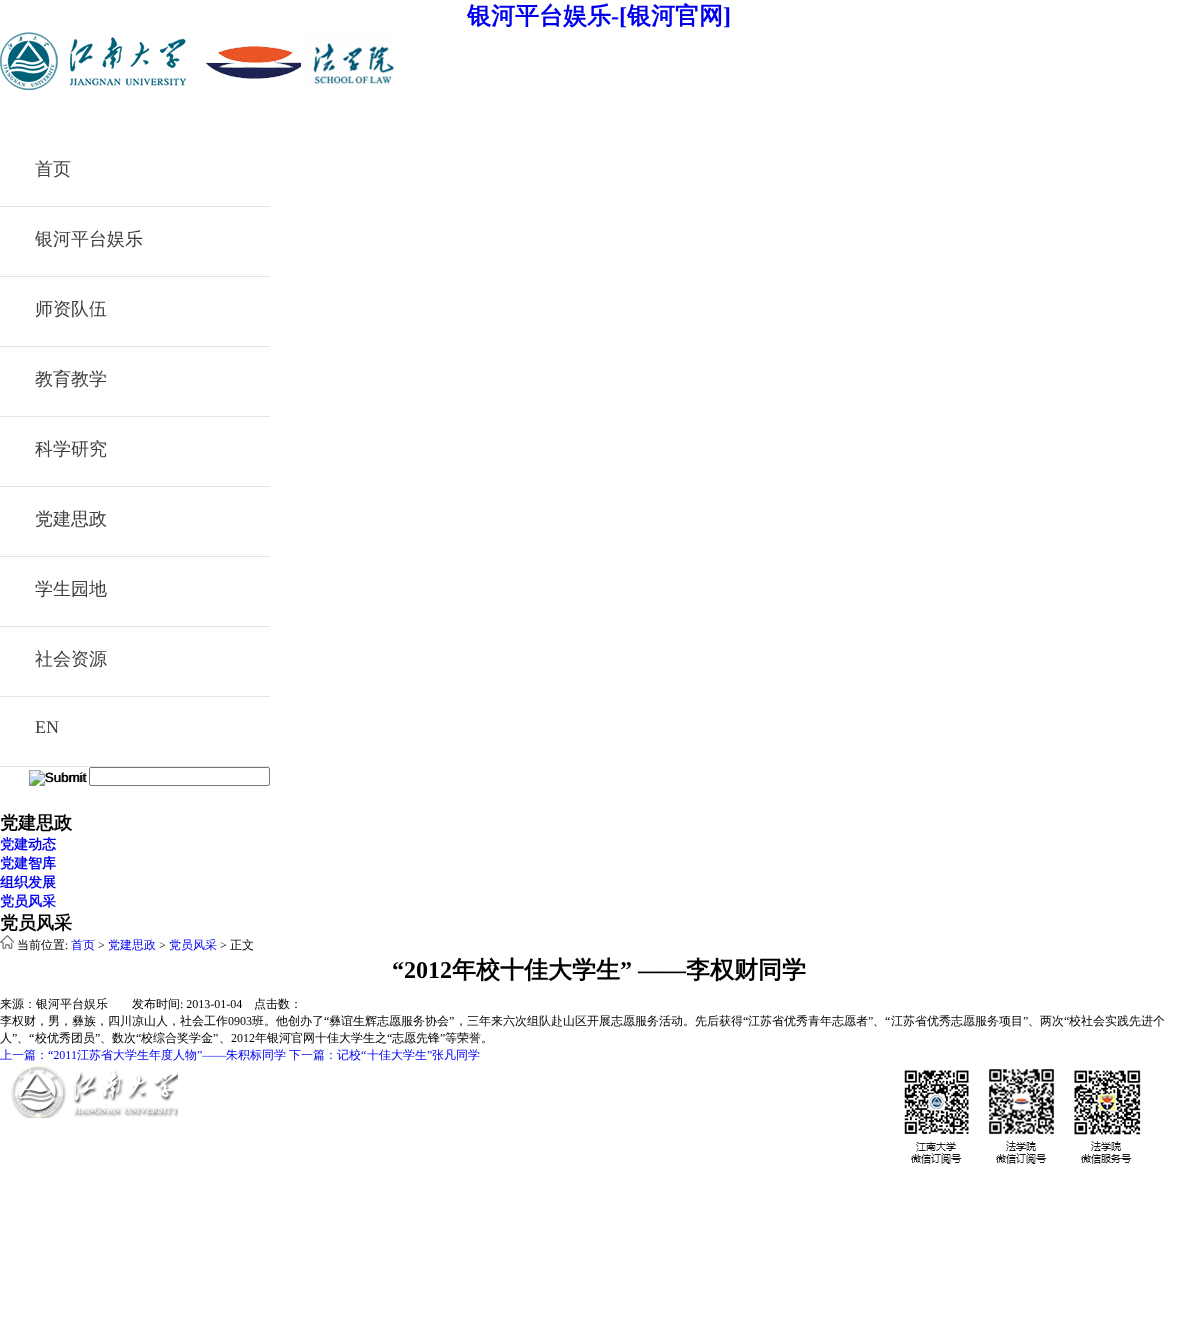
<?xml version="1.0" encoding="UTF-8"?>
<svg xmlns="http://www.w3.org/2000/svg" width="1198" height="1339">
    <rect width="100%" height="100%" fill="#FFFFFF"/>
    <text x="467" y="24" font-family="WenQuanYi Zen Hei" font-size="24" font-weight="700" fill="#0000EE">银河平台娱乐</text>
    <text x="611" y="24" font-family="Liberation Serif" font-size="24" font-weight="700" fill="#0000EE">-[</text>
    <text x="627" y="24" font-family="WenQuanYi Zen Hei" font-size="24" font-weight="700" fill="#0000EE">银河官网</text>
    <text x="723" y="24" font-family="Liberation Serif" font-size="24" font-weight="700" fill="#0000EE">]</text>
    <image x="0" y="32" width="395" height="58" href="img_01.png"/>
    <rect x="0" y="206" width="270" height="1" fill="#E5E3E3"/>
    <text x="35" y="175" font-family="WenQuanYi Zen Hei" font-size="18" font-weight="500" fill="#404040">首页</text>
    <rect x="0" y="276" width="270" height="1" fill="#E5E3E3"/>
    <text x="35" y="245" font-family="WenQuanYi Zen Hei" font-size="18" font-weight="500" fill="#404040">银河平台娱乐</text>
    <rect x="0" y="346" width="270" height="1" fill="#E5E3E3"/>
    <text x="35" y="315" font-family="WenQuanYi Zen Hei" font-size="18" font-weight="500" fill="#404040">师资队伍</text>
    <rect x="0" y="416" width="270" height="1" fill="#E5E3E3"/>
    <text x="35" y="385" font-family="WenQuanYi Zen Hei" font-size="18" font-weight="500" fill="#404040">教育教学</text>
    <rect x="0" y="486" width="270" height="1" fill="#E5E3E3"/>
    <text x="35" y="455" font-family="WenQuanYi Zen Hei" font-size="18" font-weight="500" fill="#404040">科学研究</text>
    <rect x="0" y="556" width="270" height="1" fill="#E5E3E3"/>
    <text x="35" y="525" font-family="WenQuanYi Zen Hei" font-size="18" font-weight="500" fill="#404040">党建思政</text>
    <rect x="0" y="626" width="270" height="1" fill="#E5E3E3"/>
    <text x="35" y="595" font-family="WenQuanYi Zen Hei" font-size="18" font-weight="500" fill="#404040">学生园地</text>
    <rect x="0" y="696" width="270" height="1" fill="#E5E3E3"/>
    <text x="35" y="665" font-family="WenQuanYi Zen Hei" font-size="18" font-weight="500" fill="#404040">社会资源</text>
    <rect x="0" y="766" width="270" height="1" fill="#E5E3E3"/>
    <text x="35" y="733" font-family="Liberation Serif" font-size="18" fill="#404040">EN</text>
    <image x="29" y="770" width="57" height="16" href="img_02.png"/>
    <text x="45" y="782" font-family="Liberation Sans" font-size="13.5" fill="#000000">Submit</text>
    <rect x="89.5" y="767.5" width="180" height="18" rx="1.5" fill="none" stroke="#767676"/>
    <text x="0" y="829" font-family="WenQuanYi Zen Hei" font-size="18" font-weight="700" fill="#000000">党建思政</text>
    <text font-family="WenQuanYi Zen Hei" font-size="14" font-weight="700" fill="#0000EE">
        <tspan x="0" y="849">党建动态</tspan>
        <tspan x="0" y="868">党建智库</tspan>
        <tspan x="0" y="887">组织发展</tspan>
        <tspan x="0" y="906">党员风采</tspan>
    </text>
    <text x="0" y="929" font-family="WenQuanYi Zen Hei" font-size="18" font-weight="700" fill="#000000">党员风采</text>
    <image x="0" y="935" width="14" height="14" href="img_03.png"/>
    <text x="17" y="949" font-family="WenQuanYi Zen Hei" font-size="12" font-weight="500" fill="#000000">当前位置</text>
    <text x="65" y="949" font-family="Liberation Serif" font-size="12" fill="#000000">:</text>
    <text x="71" y="949" font-family="WenQuanYi Zen Hei" font-size="12" font-weight="500" fill="#0000EE">首页</text>
    <text x="98" y="949" font-family="Liberation Serif" font-size="12" fill="#000000">&gt;</text>
    <text x="108" y="949" font-family="WenQuanYi Zen Hei" font-size="12" font-weight="500" fill="#0000EE">党建思政</text>
    <text x="159" y="949" font-family="Liberation Serif" font-size="12" fill="#000000">&gt;</text>
    <text x="169" y="949" font-family="WenQuanYi Zen Hei" font-size="12" font-weight="500" fill="#0000EE">党员风采</text>
    <text x="220" y="949" font-family="Liberation Serif" font-size="12" fill="#000000">&gt;</text>
    <text x="230" y="949" font-family="WenQuanYi Zen Hei" font-size="12" font-weight="500" fill="#000000">正文</text>
    <text x="392" y="978" font-family="Liberation Serif" font-size="24" font-weight="700" fill="#000000">“2012</text>
    <text x="452" y="978" font-family="WenQuanYi Zen Hei" font-size="24" font-weight="700" fill="#000000">年校十佳大学生</text>
    <text x="620" y="978" font-family="Liberation Serif" font-size="24" font-weight="700" fill="#000000">” ——</text>
    <text x="686" y="978" font-family="WenQuanYi Zen Hei" font-size="24" font-weight="700" fill="#000000">李权财同学</text>
    <text x="0" y="1008" font-family="WenQuanYi Zen Hei" font-size="12" font-weight="500" fill="#000000">来源：银河平台娱乐</text>
    <text x="132" y="1008" font-family="WenQuanYi Zen Hei" font-size="12" font-weight="500" fill="#000000">发布时间</text>
    <text x="180" y="1008" font-family="Liberation Serif" font-size="12" fill="#000000">: 2013-01-04</text>
    <text x="254" y="1008" font-family="WenQuanYi Zen Hei" font-size="12" font-weight="500" fill="#000000">点击数：</text>
    <text x="0" y="1025" font-family="WenQuanYi Zen Hei" font-size="12" font-weight="500" fill="#000000">李权财，男，彝族，四川凉山人，社会工作</text>
    <text x="228" y="1025" font-family="Liberation Serif" font-size="12" fill="#000000">0903</text>
    <text x="252" y="1025" font-family="WenQuanYi Zen Hei" font-size="12" font-weight="500" fill="#000000">班。他创办了</text>
    <text x="324" y="1025" font-family="Liberation Serif" font-size="12" fill="#000000">“</text>
    <text x="329" y="1025" font-family="WenQuanYi Zen Hei" font-size="12" font-weight="500" fill="#000000">彝谊生辉志愿服务协会</text>
    <text x="449" y="1025" font-family="Liberation Serif" font-size="12" fill="#000000">”</text>
    <text x="455" y="1025" font-family="WenQuanYi Zen Hei" font-size="12" font-weight="500" fill="#000000">，三年来六次组队赴山区开展志愿服务活动。先后获得</text>
    <text x="743" y="1025" font-family="Liberation Serif" font-size="12" fill="#000000">“</text>
    <text x="748" y="1025" font-family="WenQuanYi Zen Hei" font-size="12" font-weight="500" fill="#000000">江苏省优秀青年志愿者</text>
    <text x="868" y="1025" font-family="Liberation Serif" font-size="12" fill="#000000">”</text>
    <text x="885" y="1025" font-family="Liberation Serif" font-size="12" fill="#000000">“</text>
    <text x="891" y="1025" font-family="WenQuanYi Zen Hei" font-size="12" font-weight="500" fill="#000000">江苏省优秀志愿服务项目</text>
    <text x="1023" y="1025" font-family="Liberation Serif" font-size="12" fill="#000000">”</text>
    <text x="1028" y="1025" font-family="WenQuanYi Zen Hei" font-size="12" font-weight="500" fill="#000000">、两次</text>
    <text x="1064" y="1025" font-family="Liberation Serif" font-size="12" fill="#000000">“</text>
    <text x="1069" y="1025" font-family="WenQuanYi Zen Hei" font-size="12" font-weight="500" fill="#000000">校社会实践先进个</text>
    <text x="873" y="1025" font-family="WenQuanYi Zen Hei" font-size="12" font-weight="500" fill="#000000">、</text>
    <text x="0" y="1042" font-family="WenQuanYi Zen Hei" font-size="12" font-weight="500" fill="#000000">人</text>
    <text x="12" y="1042" font-family="Liberation Serif" font-size="12" fill="#000000">”</text>
    <text x="29" y="1042" font-family="Liberation Serif" font-size="12" fill="#000000">“</text>
    <text x="35" y="1042" font-family="WenQuanYi Zen Hei" font-size="12" font-weight="500" fill="#000000">校优秀团员</text>
    <text x="95" y="1042" font-family="Liberation Serif" font-size="12" fill="#000000">”</text>
    <text x="100" y="1042" font-family="WenQuanYi Zen Hei" font-size="12" font-weight="500" fill="#000000">、数次</text>
    <text x="136" y="1042" font-family="Liberation Serif" font-size="12" fill="#000000">“</text>
    <text x="141" y="1042" font-family="WenQuanYi Zen Hei" font-size="12" font-weight="500" fill="#000000">校综合奖学金</text>
    <text x="213" y="1042" font-family="Liberation Serif" font-size="12" fill="#000000">”</text>
    <text x="231" y="1042" font-family="Liberation Serif" font-size="12" fill="#000000">2012</text>
    <text x="255" y="1042" font-family="WenQuanYi Zen Hei" font-size="12" font-weight="500" fill="#000000">年银河官网十佳大学生之</text>
    <text x="387" y="1042" font-family="Liberation Serif" font-size="12" fill="#000000">“</text>
    <text x="392" y="1042" font-family="WenQuanYi Zen Hei" font-size="12" font-weight="500" fill="#000000">志愿先锋</text>
    <text x="440" y="1042" font-family="Liberation Serif" font-size="12" fill="#000000">”</text>
    <text x="445" y="1042" font-family="WenQuanYi Zen Hei" font-size="12" font-weight="500" fill="#000000">等荣誉。</text>
    <text x="17" y="1042" font-family="WenQuanYi Zen Hei" font-size="12" font-weight="500" fill="#000000">、</text>
    <text x="219" y="1042" font-family="WenQuanYi Zen Hei" font-size="12" font-weight="500" fill="#000000">、</text>
    <text x="0" y="1059" font-family="WenQuanYi Zen Hei" font-size="12" font-weight="500" fill="#0000EE">上一篇：</text>
    <text x="48" y="1059" font-family="Liberation Serif" font-size="12" fill="#0000EE">“2011</text>
    <text x="77" y="1059" font-family="WenQuanYi Zen Hei" font-size="12" font-weight="500" fill="#0000EE">江苏省大学生年度人物</text>
    <text x="197" y="1059" font-family="Liberation Serif" font-size="12" fill="#0000EE">”——</text>
    <text x="226" y="1059" font-family="WenQuanYi Zen Hei" font-size="12" font-weight="500" fill="#0000EE">朱积标同学</text>
    <text x="289" y="1059" font-family="WenQuanYi Zen Hei" font-size="12" font-weight="500" fill="#0000EE">下一篇：记校</text>
    <text x="361" y="1059" font-family="Liberation Serif" font-size="12" fill="#0000EE">“</text>
    <text x="367" y="1059" font-family="WenQuanYi Zen Hei" font-size="12" font-weight="500" fill="#0000EE">十佳大学生</text>
    <text x="427" y="1059" font-family="Liberation Serif" font-size="12" fill="#0000EE">”</text>
    <text x="432" y="1059" font-family="WenQuanYi Zen Hei" font-size="12" font-weight="500" fill="#0000EE">张凡同学</text>
    <image x="11" y="1065" width="167" height="53" href="img_04.png"/>
    <image x="904" y="1068" width="237" height="96" href="img_05.png"/>
</svg>
